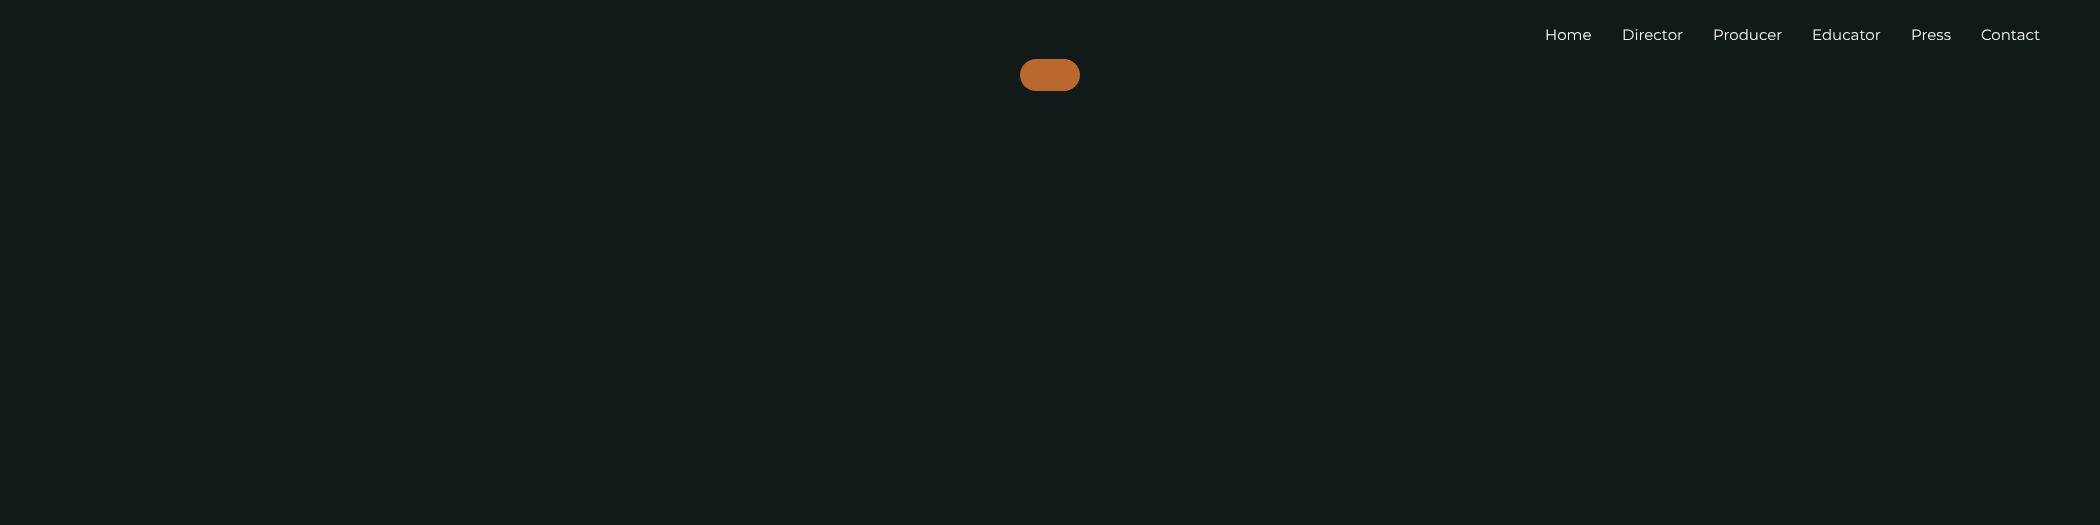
<?xml version="1.0" encoding="UTF-8"?>
<svg xmlns="http://www.w3.org/2000/svg" width="2100" height="525">
    <rect width="100%" height="100%" fill="#111A19"/>
    <text x="1545" y="40" font-family="Montserrat" font-size="15" fill="#FFFFFF">Home</text>
    <text x="1622" y="40" font-family="Montserrat" font-size="15" fill="#F9F8F8">Director</text>
    <text x="1713" y="40" font-family="Montserrat" font-size="15" fill="#F9F8F8">Producer</text>
    <text x="1812" y="40" font-family="Montserrat" font-size="15" fill="#F9F8F8">Educator</text>
    <text x="1911" y="40" font-family="Montserrat" font-size="15" fill="#F9F8F8">Press</text>
    <text x="1981" y="40" font-family="Montserrat" font-size="15" fill="#F9F8F8">Contact</text>
    <rect x="1020" y="59" width="60" height="32" rx="16" fill="#BA6830"/>
</svg>
